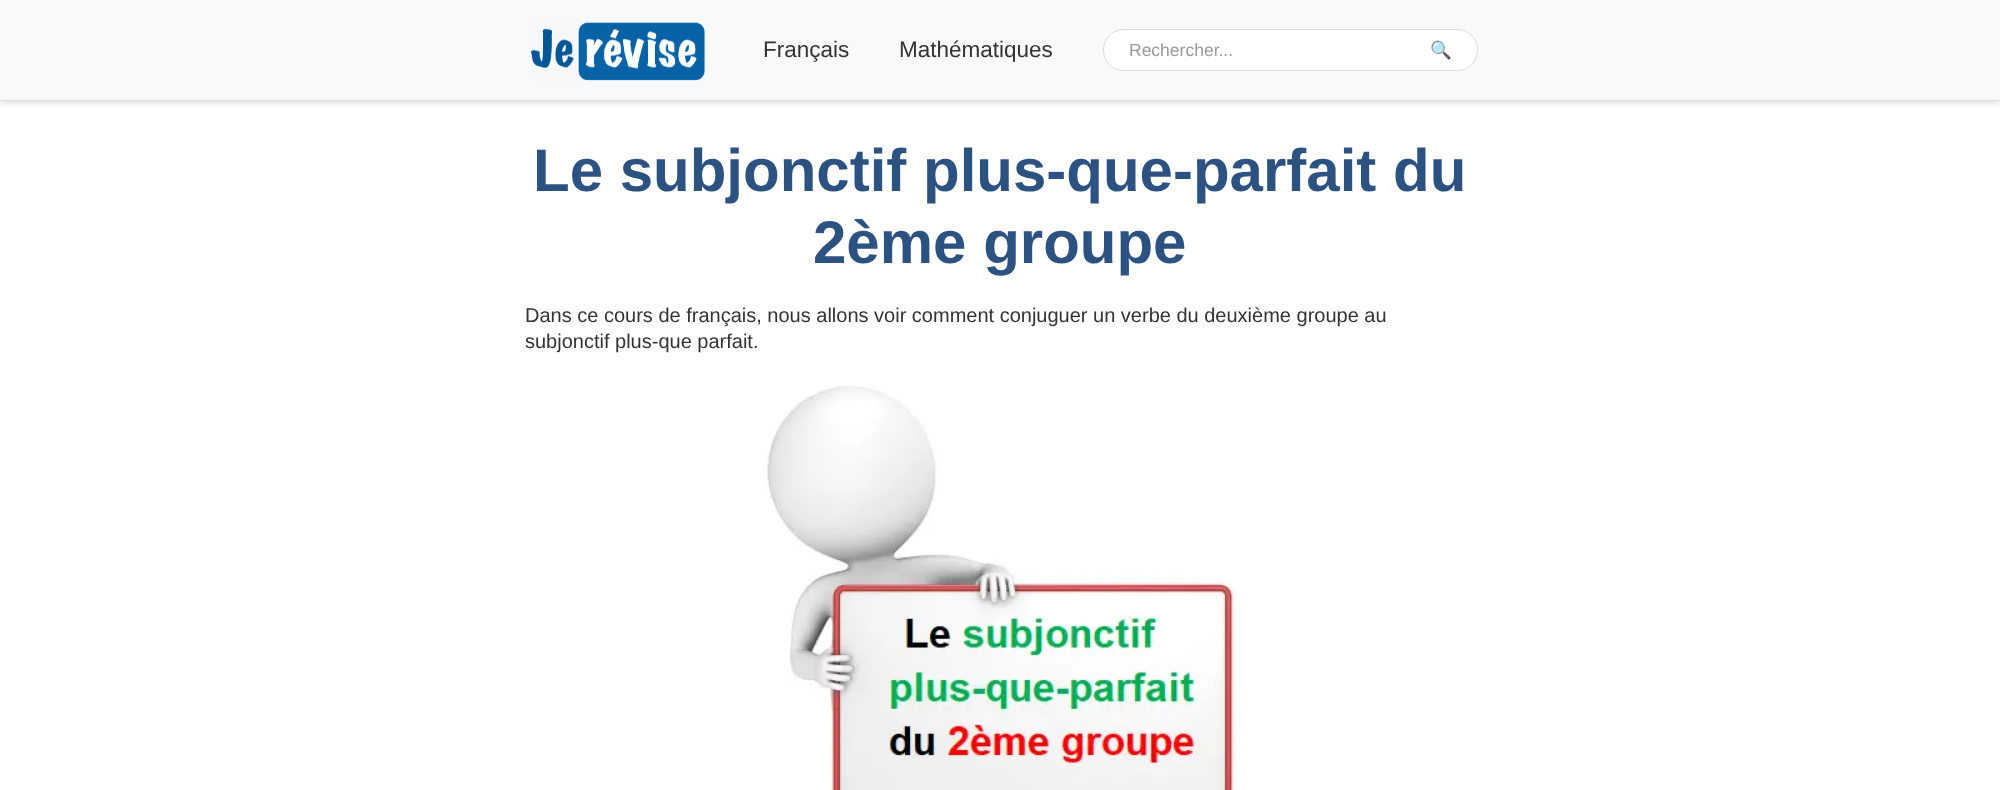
<?xml version="1.0" encoding="UTF-8"?>
<svg xmlns="http://www.w3.org/2000/svg" width="2000" height="790">
    <defs>
        <filter id="blur1" x="-50%" y="-200%" width="200%" height="500%"><feGaussianBlur stdDeviation="2.5"/></filter>
    </defs>
    <rect width="100%" height="100%" fill="#FFFFFF"/>
    <rect x="0" y="3" width="2000" height="101" fill="#000000" fill-opacity="0.1" filter="url(#blur1)"/>
    <rect x="0" y="0" width="2000" height="100" fill="#F8F9FA"/>
    <rect x="0" y="100" width="2000" height="1" fill="#DDDDDD"/>
    <image x="530" y="22" width="175" height="59" href="img_01.png"/>
    <text x="763" y="57" font-family="Liberation Sans" font-size="22.5" fill="#333333">Français</text>
    <text x="899" y="57" font-family="Liberation Sans" font-size="22.5" fill="#333333">Mathématiques</text>
    <rect x="1103.5" y="29.5" width="374" height="41" rx="20.5" fill="#FFFFFF" stroke="#DDDDDD"/>
    <text x="1129" y="56" font-family="Liberation Sans" font-size="17.5" fill="#999999">Rechercher...</text>
    <text x="1430" y="56" font-family="Noto Color Emoji" font-size="17.5" fill="#2C5282">🔍</text>
    <text x="533" y="191" font-family="Liberation Sans" font-size="60" font-weight="700" fill="#2C5282">Le subjonctif plus-que-parfait du</text>
    <text x="813" y="263" font-family="Liberation Sans" font-size="60" font-weight="700" fill="#2C5282">2ème groupe</text>
    <text font-family="Liberation Sans" font-size="20" fill="#333333">
        <tspan x="525" y="322">Dans ce cours de français, nous allons voir comment conjuguer un verbe du deuxième groupe au</tspan>
        <tspan x="525" y="348">subjonctif plus-que parfait.</tspan>
    </text>
    <image x="765" y="385" width="473" height="405" href="img_02.png"/>
</svg>
